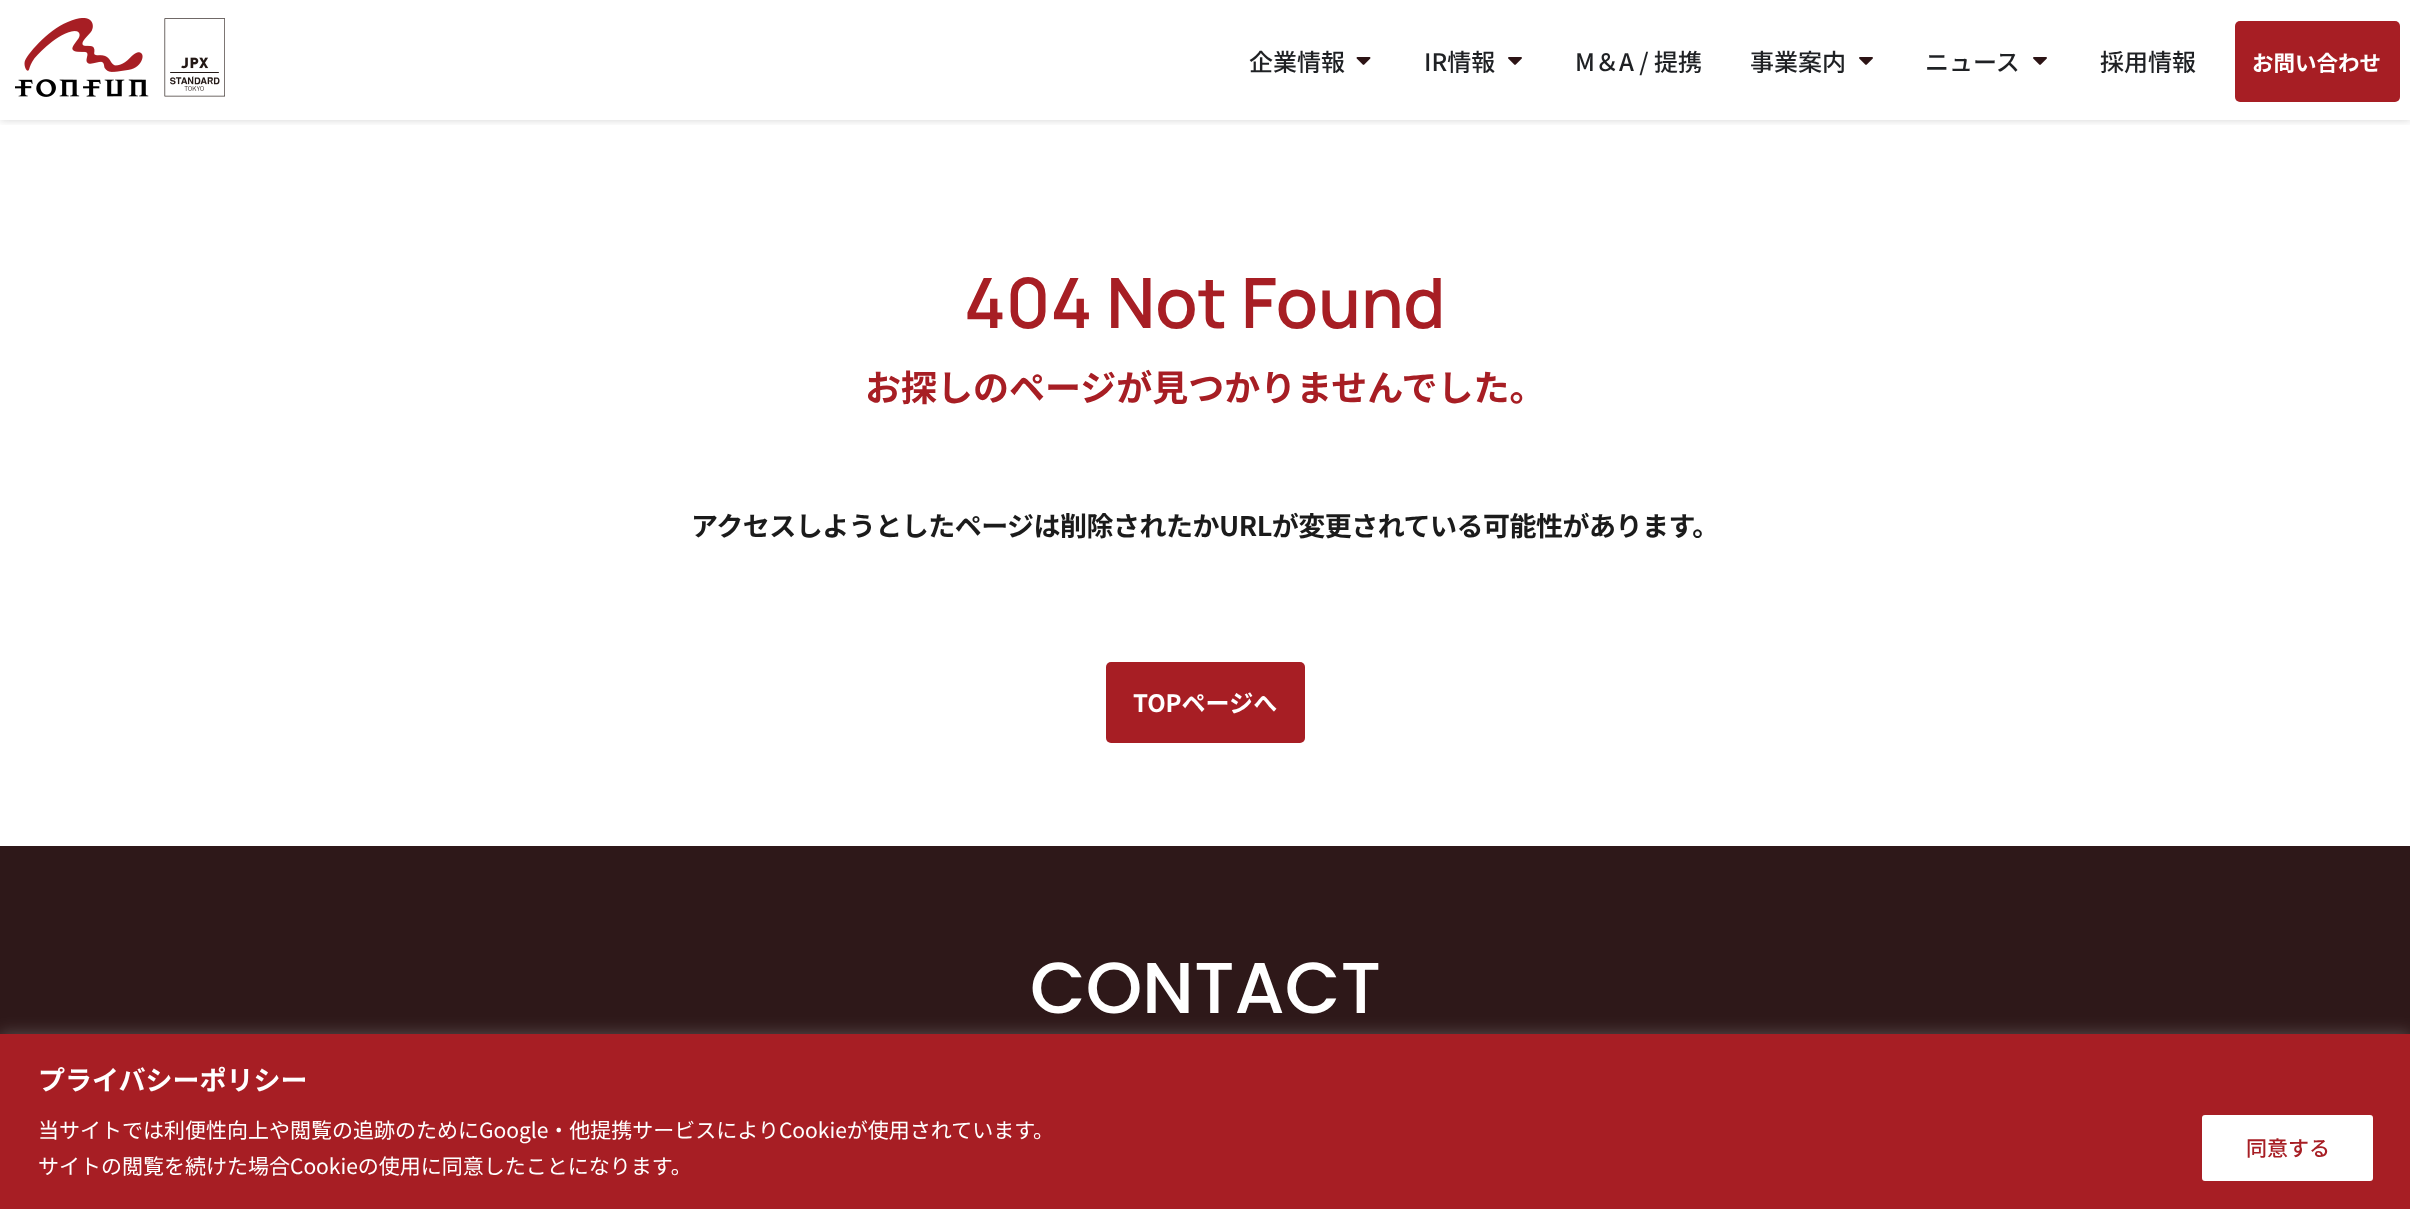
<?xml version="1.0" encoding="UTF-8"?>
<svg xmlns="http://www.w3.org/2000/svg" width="2410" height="1209">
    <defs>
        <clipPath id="clip1"><rect x="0" y="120" width="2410" height="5"/></clipPath>
        <filter id="blur1" x="-50%" y="-200%" width="200%" height="500%"><feGaussianBlur stdDeviation="4.5"/></filter>
        <filter id="blur2" x="-50%" y="-200%" width="200%" height="500%"><feGaussianBlur stdDeviation="7.5"/></filter>
    </defs>
    <rect width="100%" height="100%" fill="#FFFFFF"/>
    <g clip-path="url(#clip1)">
        <rect x="0" y="0" width="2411" height="120" fill="#000000" fill-opacity="0.17" filter="url(#blur1)"/>
    </g>
    <image x="15" y="18" width="210" height="79" href="img_01.png"/>
    <text x="1249" y="71" font-family="Noto Sans JP" font-size="24" font-weight="500" fill="#1F2124">企業情報</text>
    <image x="1356" y="57" width="15" height="8" href="img_02.png"/>
    <text x="1424" y="71" font-family="Noto Sans JP" font-size="24" font-weight="500" fill="#1F2124">IR情報</text>
    <image x="1508" y="57" width="14" height="8" href="img_03.png"/>
    <text x="1575" y="71" font-family="Noto Sans JP" font-size="24" font-weight="500" fill="#1F2124">M＆A / 提携</text>
    <text x="1750" y="71" font-family="Noto Sans JP" font-size="24" font-weight="500" fill="#1F2124">事業案内</text>
    <image x="1859" y="57" width="14" height="8" href="img_03.png"/>
    <text x="1925" y="71" font-family="Noto Sans JP" font-size="24" font-weight="500" fill="#1F2124">ニュース</text>
    <image x="2033" y="57" width="14" height="8" href="img_03.png"/>
    <text x="2100" y="71" font-family="Noto Sans JP" font-size="24" font-weight="500" fill="#1F2124">採用情報</text>
    <rect x="2235" y="21" width="165" height="81" rx="5" fill="#A71E24"/>
    <text x="2252" y="71" font-family="Noto Sans JP" font-size="21.5" font-weight="700" fill="#FFFFFF">お問い合わせ</text>
    <text x="964" y="328" font-family="Manrope" font-size="69.5" font-weight="600" fill="#A71E24">404 Not Found</text>
    <text x="865" y="401" font-family="Noto Sans JP" font-size="36" font-weight="700" fill="#A71E24">お探しのページが見つかりませんでした。</text>
    <text x="691" y="536" font-family="Noto Sans JP" font-size="27" font-weight="700" letter-spacing="-0.5" fill="#1B1B1B">アクセスしようとしたページは削除されたかURLが変更されている可能性があります。</text>
    <rect x="1106" y="662" width="199" height="81" rx="5" fill="#A71E24"/>
    <text x="1133" y="712" font-family="Noto Sans JP" font-size="24" font-weight="700" fill="#FFFFFF">TOPページへ</text>
    <rect x="0" y="846" width="2410" height="188" fill="#2E1819"/>
    <text x="1030" y="1013" font-family="Poppins" font-size="72" font-weight="500" fill="#FFFFFF">CONTACT</text>
    <rect x="0" y="1032" width="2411" height="176" fill="#ACABAB" fill-opacity="0.3" filter="url(#blur2)"/>
    <rect x="0" y="1034" width="2410" height="175" fill="#A71E24"/>
    <text x="38" y="1090" font-family="Noto Sans JP" font-size="27" font-weight="700" fill="#FFFFFF">プライバシーポリシー</text>
    <text font-family="Noto Sans JP" font-size="21" fill="#FFFFFF">
        <tspan x="38" y="1138">当サイトでは利便性向上や閲覧の追跡のためにGoogle・他提携サービスによりCookieが使用されています。</tspan>
        <tspan x="38" y="1174">サイトの閲覧を続けた場合Cookieの使用に同意したことになります。</tspan>
    </text>
    <rect x="2203.5" y="1116.5" width="168" height="63" rx="1.5" fill="#FFFFFF" stroke="#FFFFFF" stroke-width="3"/>
    <text x="2246" y="1156" font-family="Noto Sans JP" font-size="21" font-weight="500" fill="#A71E24">同意する</text>
</svg>
